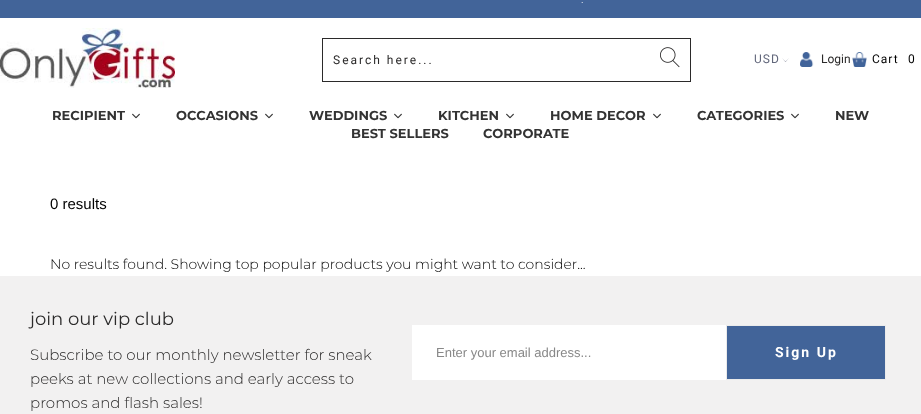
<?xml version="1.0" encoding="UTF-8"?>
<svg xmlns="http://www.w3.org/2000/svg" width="921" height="414">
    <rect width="100%" height="100%" fill="#FFFFFF"/>
    <rect x="0" y="0" width="921" height="18" fill="#426499"/>
    <text x="581" y="3" font-family="Montserrat" font-size="12" font-weight="300" fill="#FFFFFF">.</text>
    <image x="0" y="28" width="175" height="60" href="img_01.png"/>
    <rect x="322.5" y="38.5" width="368" height="43" fill="none" stroke="#2B2A2A"/>
    <text x="333" y="64" font-family="Roboto" font-size="12" letter-spacing="2" fill="#2B2A2A">Search here...</text>
    <image x="660" y="47" width="20" height="21" href="img_02.png"/>
    <text x="754" y="63" font-family="Roboto" font-size="12" letter-spacing="1" fill="#62677B">USD</text>
    <path d="M 785.5 62 L 782 58 L 785.5 61.5 L 789 58 Z" fill="#62677B"/>
    <image x="800" y="52" width="14" height="15" href="img_03.png"/>
    <text x="821" y="63" font-family="Roboto" font-size="12" fill="#2B2A2A">Login</text>
    <image x="852" y="52" width="15" height="15" href="img_04.png"/>
    <text x="872" y="63" font-family="Roboto" font-size="12" letter-spacing="1" fill="#000000">Cart</text>
    <text x="908" y="63" font-family="Roboto" font-size="12" letter-spacing="1" fill="#000000">0</text>
    <text x="52" y="120" font-family="Montserrat" font-size="13" font-weight="700" fill="#333333">RECIPIENT</text>
    <image x="132" y="113" width="8" height="6" href="img_05.png"/>
    <text x="176" y="120" font-family="Montserrat" font-size="13" font-weight="700" fill="#333333">OCCASIONS</text>
    <image x="265" y="113" width="8" height="6" href="img_05.png"/>
    <text x="309" y="120" font-family="Montserrat" font-size="13" font-weight="700" fill="#333333">WEDDINGS</text>
    <image x="394" y="113" width="8" height="6" href="img_05.png"/>
    <text x="438" y="120" font-family="Montserrat" font-size="13" font-weight="700" fill="#333333">KITCHEN</text>
    <image x="506" y="113" width="8" height="6" href="img_05.png"/>
    <text x="550" y="120" font-family="Montserrat" font-size="13" font-weight="700" fill="#333333">HOME DECOR</text>
    <image x="653" y="113" width="8" height="6" href="img_05.png"/>
    <text x="697" y="120" font-family="Montserrat" font-size="13" font-weight="700" fill="#333333">CATEGORIES</text>
    <image x="791" y="113" width="8" height="6" href="img_05.png"/>
    <text x="835" y="120" font-family="Montserrat" font-size="13" font-weight="700" fill="#333333">NEW</text>
    <text x="351" y="138" font-family="Montserrat" font-size="13" font-weight="700" fill="#333333">BEST SELLERS</text>
    <text x="483" y="138" font-family="Montserrat" font-size="13" font-weight="700" fill="#333333">CORPORATE</text>
    <text x="50" y="209" font-family="Liberation Sans" font-size="15" fill="#000000">0 results</text>
    <text x="50" y="269" font-family="Montserrat" font-size="14" font-weight="300" fill="#000000">No results found. Showing top popular products you might want to consider...</text>
    <rect x="0" y="276" width="921" height="138" fill="#F2F1F1"/>
    <text x="30" y="325" font-family="Montserrat" font-size="18" fill="#2B2A2A">join our vip club</text>
    <text font-family="Montserrat" font-size="15" font-weight="300" fill="#2B2A2A">
        <tspan x="30" y="360">Subscribe to our monthly newsletter for sneak</tspan>
        <tspan x="30" y="384">peeks at new collections and early access to</tspan>
        <tspan x="30" y="408">promos and flash sales!</tspan>
    </text>
    <rect x="412" y="325" width="314" height="55" fill="#FFFFFF"/>
    <text x="436" y="357" font-family="Liberation Sans" font-size="13" fill="#888888">Enter your email address...</text>
    <rect x="726.5" y="325.5" width="159" height="54" fill="#426499" stroke="#EBEBEB"/>
    <text x="775" y="357" font-family="Roboto" font-size="14" font-weight="700" letter-spacing="2" fill="#FFFFFF">Sign Up</text>
</svg>
